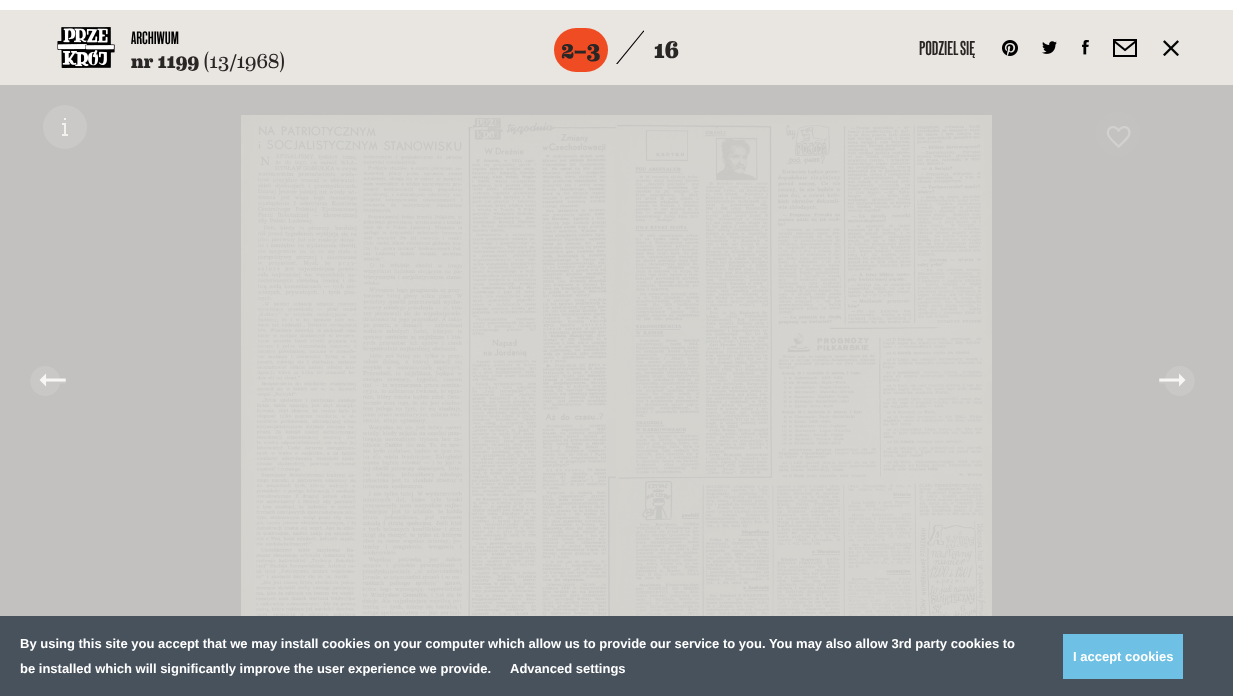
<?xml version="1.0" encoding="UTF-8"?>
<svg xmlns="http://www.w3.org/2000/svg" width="1233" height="696">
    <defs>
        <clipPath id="clip1"><rect x="612" y="25" width="32" height="39"/></clipPath>
    </defs>
    <rect width="100%" height="100%" fill="#C2C1BF"/>
    <rect x="0" y="0" width="1233" height="10" fill="#FFFFFF"/>
    <rect x="0" y="10" width="1233" height="75" fill="#E9E5E0"/>
    <image x="57" y="27" width="58" height="41" href="img_01.png"/>
    <text x="131" y="44" font-family="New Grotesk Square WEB" font-size="18" font-weight="500" fill="#000000">ARCHIWUM</text>
    <text x="131" y="68" font-family="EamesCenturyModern" font-size="20" font-weight="800" fill="#292626">nr 1199</text>
    <text x="204" y="68" font-family="Eames Century Modern" font-size="20" fill="#292626">(13/1968)</text>
    <rect x="554" y="28" width="54" height="44" rx="22" fill="#EF4C24"/>
    <text x="561" y="58" font-family="EamesCenturyModern" font-size="24" font-weight="800" fill="#292626">2–3</text>
    <g clip-path="url(#clip1)">
        <path d="M 643.5 30.5 L 644.5 31 L 613 69.5 L 612 69 Z" fill="#000000"/>
    </g>
    <text x="654" y="58" font-family="EamesCenturyModern" font-size="24" font-weight="800" fill="#292626">16</text>
    <text x="919" y="55" font-family="New Grotesk Square WEB" font-size="20" font-weight="500" fill="#292626">PODZIEL SIĘ</text>
    <image x="1002" y="40" width="16" height="16" href="img_02.png"/>
    <image x="1042" y="41" width="15" height="13" href="img_03.png"/>
    <image x="1082" y="40" width="7" height="15" href="img_04.png"/>
    <image x="1113" y="39" width="24" height="18" href="img_05.png"/>
    <image x="1163" y="40" width="16" height="16" href="img_06.png"/>
    <circle cx="65" cy="127" r="22" fill="#CAC9C7"/>
    <path d="M 64 123 H 66 V 135 H 64 Z M 64 118 H 66 V 120 H 64 Z M 62 123 H 64 V 125 H 62 Z" fill="#F2F1EE"/>
    <rect x="62" y="134" width="6" height="2" fill="#F2F1EE"/>
    <image x="241" y="115" width="375" height="501" href="img_07.png"/>
    <image x="616" y="115" width="376" height="501" href="img_08.png"/>
    <image x="1096" y="112" width="44" height="44" href="img_09.png"/>
    <image x="30" y="366" width="36" height="30" href="img_10.png"/>
    <image x="1159" y="366" width="36" height="30" href="img_11.png"/>
    <rect x="0" y="616" width="1233" height="80" fill="#47525D"/>
    <text font-family="Liberation Sans" font-size="13" font-weight="700" fill="#FFFFFF">
        <tspan x="20" y="648">By using this site you accept that we may install cookies on your computer which allow us to provide our service to you. You may also allow 3rd party cookies to</tspan>
        <tspan x="20" y="673">be installed which will significantly improve the user experience we provide.</tspan>
    </text>
    <text x="510" y="673" font-family="Liberation Sans" font-size="13" font-weight="700" fill="#FFFFFF">Advanced settings</text>
    <rect x="1063" y="634" width="120" height="45" fill="#6EC1E4"/>
    <text x="1073" y="661" font-family="Liberation Sans" font-size="13" font-weight="700" fill="#FFFFFF">I accept cookies</text>
</svg>
